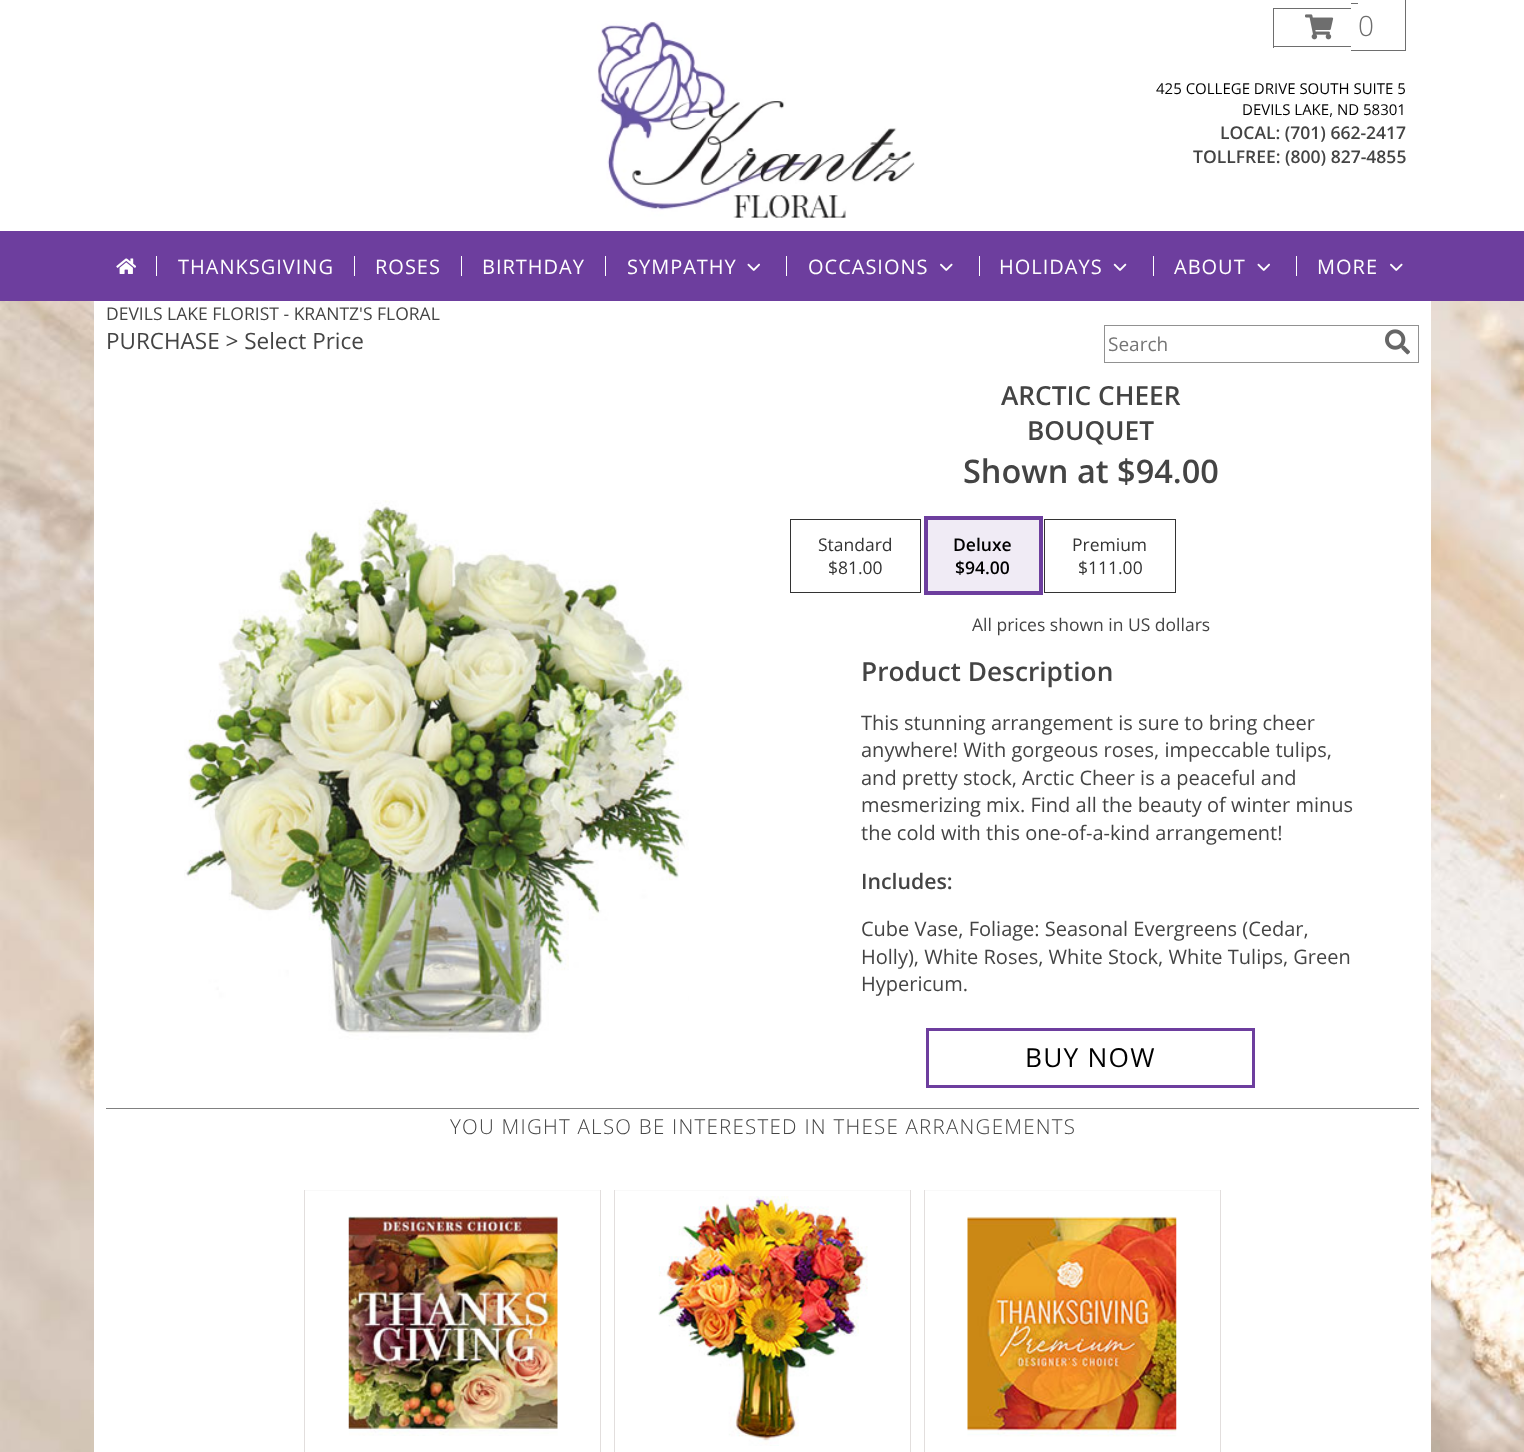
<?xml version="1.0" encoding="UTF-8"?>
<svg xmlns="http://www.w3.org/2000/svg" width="1524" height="1452">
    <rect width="100%" height="100%" fill="#FFFFFF"/>
    <image x="0" y="301" width="1524" height="1151" href="img_01.png"/>
    <rect x="94" y="301" width="1337" height="1151" fill="#FFFFFF"/>
    <image x="597" y="21" width="318" height="197" href="img_02.png"/>
    <rect x="1273" y="8" width="78" height="1" fill="#6E6E6E"/>
    <rect x="1273" y="46" width="78" height="1" fill="#6E6E6E"/>
    <rect x="1273" y="8" width="1" height="40" fill="#6E6E6E"/>
    <rect x="1351" y="3" width="7" height="1" fill="#6E6E6E"/>
    <rect x="1351" y="50" width="7" height="1" fill="#6E6E6E"/>
    <rect x="1405" y="0" width="1" height="51" fill="#6E6E6E"/>
    <rect x="1358" y="50" width="48" height="1" fill="#6E6E6E"/>
    <image x="1305" y="14" width="29" height="26" href="img_03.png"/>
    <text x="1358" y="36" font-family="Open Sans" font-size="28" font-weight="300" fill="#6E6E6E">0</text>
    <text x="1156" y="94" font-family="Open Sans" font-size="15" fill="#000000">425 COLLEGE DRIVE SOUTH SUITE 5</text>
    <text x="1242" y="115" font-family="Open Sans" font-size="15" fill="#000000">DEVILS LAKE, ND 58301</text>
    <text x="1220" y="139" font-family="Open Sans" font-size="17.5" font-weight="600" fill="#444444">LOCAL: (701) 662-2417</text>
    <text x="1193" y="163" font-family="Open Sans" font-size="17.5" font-weight="600" fill="#444444">TOLLFREE: (800) 827-4855</text>
    <rect x="0" y="231" width="1524" height="70" fill="#6D3E9E"/>
    <image x="116" y="258" width="20" height="16" href="img_04.png"/>
    <rect x="156" y="256" width="1" height="20" fill="#FFFFFF"/>
    <text x="178" y="274" font-family="Open Sans" font-size="20" letter-spacing="1" fill="#FFFFFF">THANKSGIVING</text>
    <rect x="354" y="256" width="1" height="20" fill="#FFFFFF"/>
    <text x="375" y="274" font-family="Open Sans" font-size="20" letter-spacing="1" fill="#FFFFFF">ROSES</text>
    <rect x="461" y="256" width="1" height="20" fill="#FFFFFF"/>
    <text x="482" y="274" font-family="Open Sans" font-size="20" letter-spacing="1" fill="#FFFFFF">BIRTHDAY</text>
    <rect x="605" y="256" width="1" height="20" fill="#FFFFFF"/>
    <text x="627" y="274" font-family="Open Sans" font-size="20" letter-spacing="1" fill="#FFFFFF">SYMPATHY</text>
    <image x="747" y="263" width="13" height="8" href="img_05.png"/>
    <rect x="786" y="256" width="1" height="20" fill="#FFFFFF"/>
    <text x="808" y="274" font-family="Open Sans" font-size="20" letter-spacing="1" fill="#FFFFFF">OCCASIONS</text>
    <image x="940" y="263" width="13" height="8" href="img_06.png"/>
    <rect x="979" y="256" width="1" height="20" fill="#FFFFFF"/>
    <text x="999" y="274" font-family="Open Sans" font-size="20" letter-spacing="1" fill="#FFFFFF">HOLIDAYS</text>
    <image x="1113" y="263" width="14" height="8" href="img_07.png"/>
    <rect x="1153" y="256" width="1" height="20" fill="#FFFFFF"/>
    <text x="1174" y="274" font-family="Open Sans" font-size="20" letter-spacing="1" fill="#FFFFFF">ABOUT</text>
    <image x="1257" y="263" width="13" height="8" href="img_05.png"/>
    <rect x="1296" y="256" width="1" height="20" fill="#FFFFFF"/>
    <text x="1317" y="274" font-family="Open Sans" font-size="20" letter-spacing="1" fill="#FFFFFF">MORE</text>
    <image x="1390" y="263" width="13" height="8" href="img_06.png"/>
    <text x="106" y="320" font-family="Open Sans" font-size="17.5" fill="#444444">DEVILS LAKE FLORIST - KRANTZ'S FLORAL</text>
    <text x="106" y="349" font-family="Open Sans" font-size="22.5" fill="#444444">PURCHASE &gt; Select Price</text>
    <rect x="1104.5" y="325.5" width="314" height="37" fill="none" stroke="#919191"/>
    <text x="1108" y="351" font-family="Open Sans" font-size="19" fill="#757575">Search</text>
    <image x="1385" y="329" width="25" height="26" href="img_08.png"/>
    <image x="184" y="500" width="505" height="540" href="img_09.png"/>
    <text x="1001" y="405" font-family="Open Sans" font-size="26.25" font-weight="600" fill="#444444">ARCTIC CHEER</text>
    <text x="1027" y="440" font-family="Open Sans" font-size="26.25" font-weight="600" fill="#444444">BOUQUET</text>
    <text x="963" y="483" font-family="Open Sans" font-size="32.5" font-weight="600" fill="#444444">Shown at $94.00</text>
    <rect x="790.5" y="519.5" width="130" height="73" fill="none" stroke="#333333"/>
    <text x="818" y="551" font-family="Open Sans" font-size="17.5" fill="#333333">Standard</text>
    <text x="828" y="574" font-family="Open Sans" font-size="17.5" fill="#333333">$81.00</text>
    <rect x="926" y="518" width="115" height="75" fill="none" stroke="#6D3E9E" stroke-width="4"/>
    <rect x="928" y="520" width="111" height="71" fill="#F0EBF5"/>
    <text x="953" y="551" font-family="Open Sans" font-size="17.5" font-weight="600" fill="#000000">Deluxe</text>
    <text x="955" y="574" font-family="Open Sans" font-size="17.5" font-weight="600" fill="#000000">$94.00</text>
    <rect x="1044.5" y="519.5" width="131" height="73" fill="none" stroke="#333333"/>
    <text x="1072" y="551" font-family="Open Sans" font-size="17.5" fill="#333333">Premium</text>
    <text x="1078" y="574" font-family="Open Sans" font-size="17.5" fill="#333333">$111.00</text>
    <text x="972" y="631" font-family="Open Sans" font-size="17.5" fill="#444444">All prices shown in US dollars</text>
    <text x="861" y="681" font-family="Open Sans" font-size="26.25" font-weight="600" fill="#444444">Product Description</text>
    <text font-family="Open Sans" font-size="20" fill="#444444">
        <tspan x="861" y="730">This stunning arrangement is sure to bring cheer</tspan>
        <tspan x="861" y="757">anywhere! With gorgeous roses, impeccable tulips,</tspan>
        <tspan x="861" y="785">and pretty stock, Arctic Cheer is a peaceful and</tspan>
        <tspan x="861" y="812">mesmerizing mix. Find all the beauty of winter minus</tspan>
        <tspan x="861" y="840">the cold with this one-of-a-kind arrangement!</tspan>
    </text>
    <text x="861" y="889" font-family="Open Sans" font-size="21.25" font-weight="600" fill="#444444">Includes:</text>
    <text font-family="Open Sans" font-size="20" fill="#444444">
        <tspan x="861" y="936">Cube Vase, Foliage: Seasonal Evergreens (Cedar,</tspan>
        <tspan x="861" y="964">Holly), White Roses, White Stock, White Tulips, Green</tspan>
        <tspan x="861" y="991">Hypericum.</tspan>
    </text>
    <rect x="927.5" y="1029.5" width="326" height="57" fill="none" stroke="#6D3E9E" stroke-width="3"/>
    <text x="1025" y="1067" font-family="Open Sans" font-size="26.25" letter-spacing="1.25" fill="#000000">BUY NOW</text>
    <rect x="106" y="1108" width="1313" height="1" fill="#808080"/>
    <text x="450" y="1134" font-family="Open Sans" font-size="20.5" font-weight="300" letter-spacing="1.25" fill="#444444">YOU MIGHT ALSO BE INTERESTED IN THESE ARRANGEMENTS</text>
    <rect x="304" y="1190" width="297" height="1" fill="#F9F9F9"/>
    <rect x="600" y="1190" width="1" height="262" fill="#E2DEDD"/>
    <rect x="304" y="1190" width="1" height="262" fill="#E2DEDD"/>
    <image x="348" y="1216" width="210" height="220" href="img_10.png"/>
    <rect x="614" y="1190" width="297" height="1" fill="#F9F9F9"/>
    <rect x="910" y="1190" width="1" height="262" fill="#E2DEDD"/>
    <rect x="614" y="1190" width="1" height="262" fill="#E2DEDD"/>
    <image x="658" y="1196" width="210" height="250" href="img_11.png"/>
    <rect x="924" y="1190" width="297" height="1" fill="#F9F9F9"/>
    <rect x="1220" y="1190" width="1" height="262" fill="#E2DEDD"/>
    <rect x="924" y="1190" width="1" height="262" fill="#E2DEDD"/>
    <image x="967" y="1216" width="210" height="221" href="img_12.png"/>
</svg>
